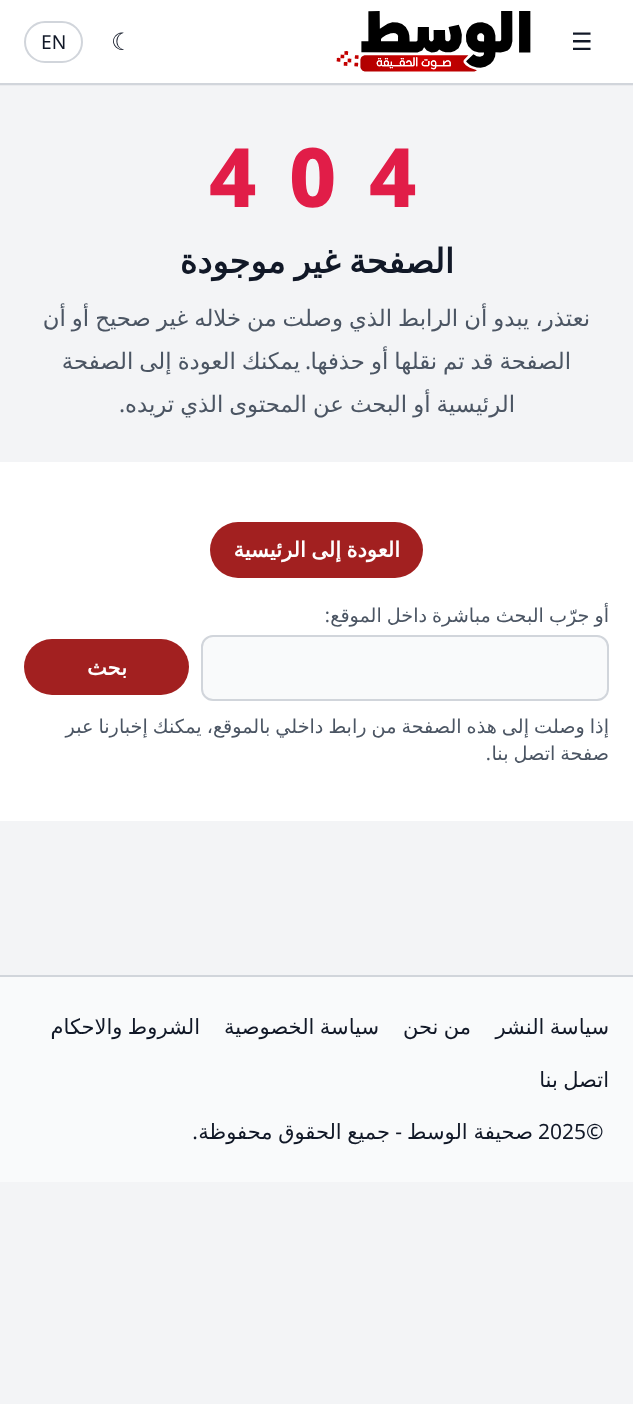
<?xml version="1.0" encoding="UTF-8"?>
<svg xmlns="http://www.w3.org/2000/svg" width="633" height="1404">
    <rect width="100%" height="100%" fill="#F3F4F6"/>
    <rect x="0" y="85" width="633" height="1" fill="#EAEBEE"/>
    <rect x="0" y="0" width="633" height="83" fill="#FFFFFF"/>
    <rect x="0" y="83" width="633" height="2" fill="#D1D5DB"/>
    <text x="571" y="50" font-family="DejaVu Sans" font-size="24" fill="#111827">☰</text>
    <image x="336" y="11" width="195" height="61" href="img_01.png"/>
    <text x="111" y="50" font-family="DejaVu Sans" font-size="24" fill="#111827">☾</text>
    <rect x="25" y="22" width="57" height="40" rx="20" fill="none" stroke="#D1D5DB" stroke-width="2"/>
    <text x="41" y="49" font-family="Noto Sans" font-size="19.2" fill="#111827">EN</text>
    <text x="369" y="207" font-family="Noto Sans" font-size="82" font-weight="800" letter-spacing="8" fill="#E11D48">4</text>
    <text x="289" y="207" font-family="Noto Sans" font-size="82" font-weight="800" letter-spacing="8" fill="#E11D48">0</text>
    <text x="209" y="207" font-family="Noto Sans" font-size="82" font-weight="800" letter-spacing="8" fill="#E11D48">4</text>
    <text x="454" y="273" word-spacing="-2" font-family="DejaVu Sans" font-size="33.5" font-weight="700" direction="rtl" fill="#111827">الصفحة غير موجودة</text>
    <text x="590" y="326" word-spacing="-1.25" font-family="DejaVu Sans" font-size="22.8" direction="rtl" fill="#4B5563">نعتذر، يبدو أن الرابط الذي وصلت من خلاله غير صحيح أو أن</text>
    <text x="571" y="369" word-spacing="-1.25" font-family="DejaVu Sans" font-size="22.8" direction="rtl" fill="#4B5563">الصفحة قد تم نقلها أو حذفها</text>
    <text x="311" y="369" font-family="Noto Sans" font-size="22.8" direction="rtl" fill="#4B5563">.</text>
    <text x="300" y="369" word-spacing="-1.25" font-family="DejaVu Sans" font-size="22.8" direction="rtl" fill="#4B5563">يمكنك العودة إلى الصفحة</text>
    <text x="515" y="412" word-spacing="-1.25" font-family="DejaVu Sans" font-size="22.8" direction="rtl" fill="#4B5563">الرئيسية أو البحث عن المحتوى الذي تريده</text>
    <text x="125" y="412" font-family="Noto Sans" font-size="22.8" direction="rtl" fill="#4B5563">.</text>
    <rect x="0" y="462" width="633" height="359" fill="#FFFFFF"/>
    <rect x="210" y="522" width="213" height="56" rx="28" fill="#A22020"/>
    <text x="400" y="557" word-spacing="-1.25" font-family="DejaVu Sans" font-size="21" font-weight="700" direction="rtl" fill="#FFFFFF">العودة إلى الرئيسية</text>
    <text x="609" y="622" word-spacing="-1.1" font-family="DejaVu Sans" font-size="19.2" direction="rtl" fill="#4B5563">أو جرّب البحث مباشرة داخل الموقع</text>
    <text x="330" y="622" font-family="Noto Sans" font-size="19.2" direction="rtl" fill="#4B5563">:</text>
    <rect x="202" y="636" width="406" height="64" rx="11" fill="#F9FAFB" stroke="#D1D5DB" stroke-width="2"/>
    <rect x="24" y="639" width="165" height="56" rx="28" fill="#A22020"/>
    <text x="127" y="675" font-family="DejaVu Sans" font-size="21" font-weight="700" direction="rtl" fill="#FFFFFF">بحث</text>
    <text font-family="DejaVu Sans" font-size="19.2" direction="rtl" fill="#4B5563">
        <tspan x="609" y="733" word-spacing="-1.1">إذا وصلت إلى هذه الصفحة من رابط داخلي بالموقع، يمكنك إخبارنا عبر</tspan>
        <tspan x="609" y="760" word-spacing="-1.1">صفحة اتصل بنا</tspan>
    </text>
    <text x="491" y="760" font-family="Noto Sans" font-size="19.2" direction="rtl" fill="#4B5563">.</text>
    <rect x="0" y="977" width="633" height="205" fill="#F9FAFB"/>
    <rect x="0" y="975" width="633" height="2" fill="#D1D5DB"/>
    <text x="609" y="1034" word-spacing="-1.25" font-family="DejaVu Sans" font-size="21" direction="rtl" fill="#111827">سياسة النشر</text>
    <text x="471" y="1034" word-spacing="-1.25" font-family="DejaVu Sans" font-size="21" direction="rtl" fill="#111827">من نحن</text>
    <text x="379" y="1034" word-spacing="-1.25" font-family="DejaVu Sans" font-size="21" direction="rtl" fill="#111827">سياسة الخصوصية</text>
    <text x="200" y="1034" word-spacing="-1.25" font-family="DejaVu Sans" font-size="21" direction="rtl" fill="#111827">الشروط والاحكام</text>
    <text x="609" y="1087" word-spacing="-1.25" font-family="DejaVu Sans" font-size="21" direction="rtl" fill="#111827">اتصل بنا</text>
    <text x="538" y="1139" font-family="Noto Sans" font-size="21" fill="#111827">2025©</text>
    <text x="533" y="1139" word-spacing="-1" font-family="DejaVu Sans" font-size="21" direction="rtl" fill="#111827">صحيفة الوسط</text>
    <text x="402" y="1139" font-family="Noto Sans" font-size="21" direction="rtl" fill="#111827">-</text>
    <text x="390" y="1139" word-spacing="-1" font-family="DejaVu Sans" font-size="21" direction="rtl" fill="#111827">جميع الحقوق محفوظة</text>
    <text x="198" y="1139" font-family="Noto Sans" font-size="21" direction="rtl" fill="#111827">.</text>
</svg>
